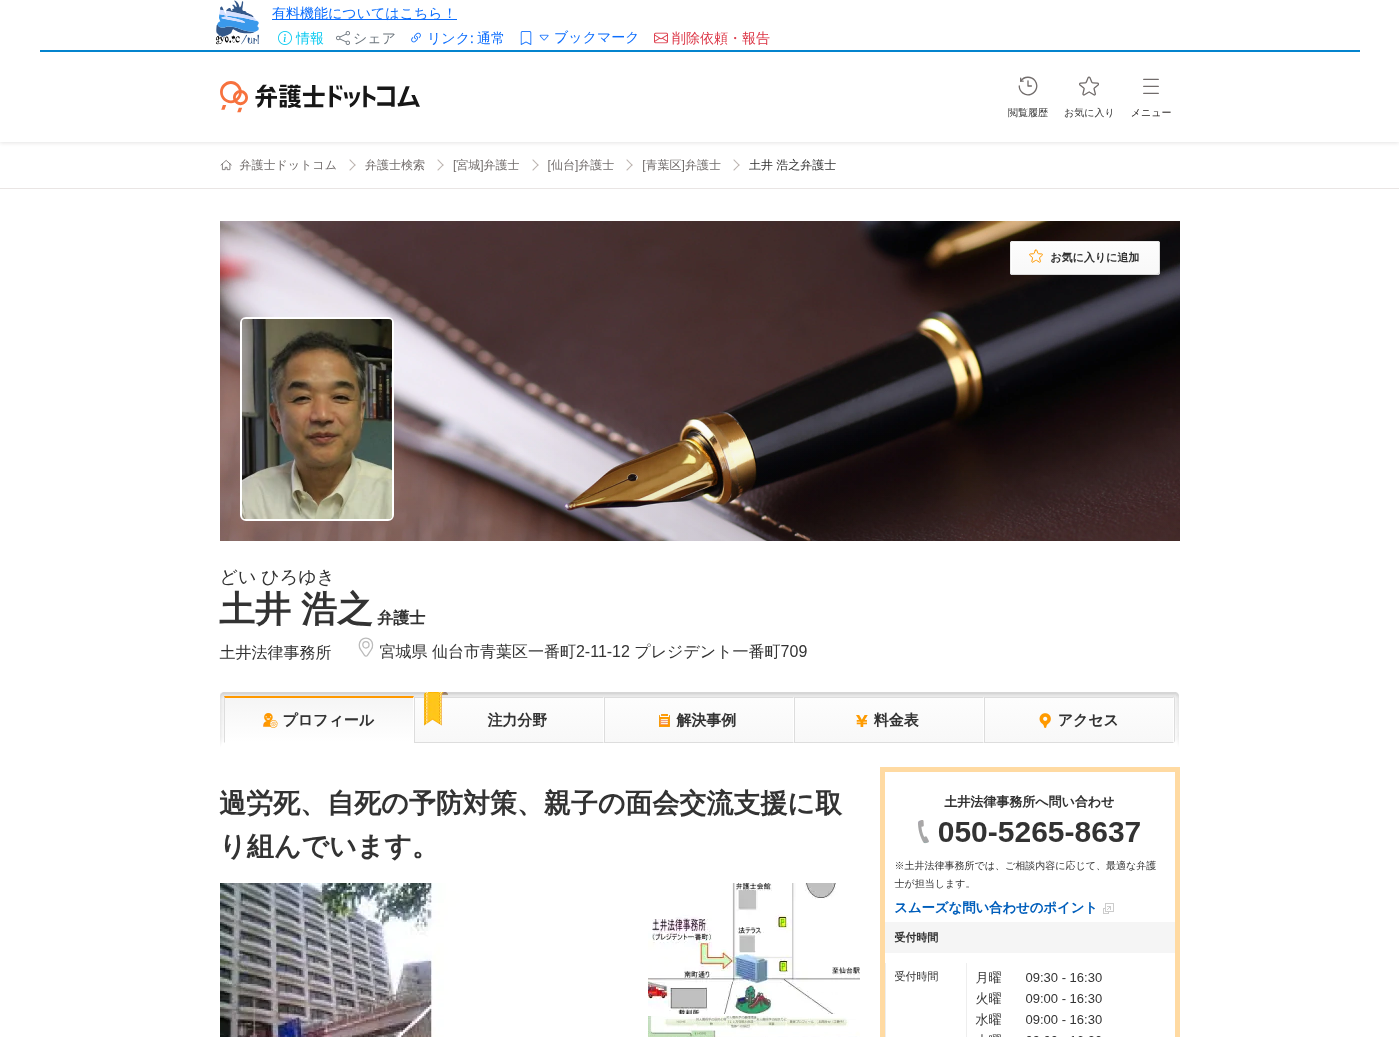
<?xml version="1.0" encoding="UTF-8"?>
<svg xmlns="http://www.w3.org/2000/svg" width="1400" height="1037">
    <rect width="100%" height="100%" fill="#FFFFFF"/>
    <rect x="40" y="50" width="1320" height="2" fill="#0484CE"/>
    <image x="215" y="0" width="44" height="45" href="img_01.png"/>
    <rect x="272" y="19" width="185" height="1" fill="#0D6EFD"/>
    <text x="272" y="18" font-family="WenQuanYi Zen Hei" font-size="14" font-weight="500" fill="#0D6EFD">有料機能についてはこちら！</text>
    <image x="278" y="31" width="14" height="14" href="img_02.png"/>
    <text x="296" y="43" font-family="WenQuanYi Zen Hei" font-size="14" font-weight="500" fill="#0DCAF0">情報</text>
    <image x="336" y="31" width="14" height="14" href="img_03.png"/>
    <text x="353" y="43" font-family="WenQuanYi Zen Hei" font-size="14" font-weight="500" fill="#6C757D">シェア</text>
    <image x="411" y="32" width="10" height="11" href="img_04.png"/>
    <text x="427" y="43" font-family="WenQuanYi Zen Hei" font-size="14" font-weight="500" fill="#0D6EFD">リンク</text>
    <text x="470" y="43" font-family="Noto Sans" font-size="14" fill="#0D6EFD">:</text>
    <text x="477" y="43" font-family="WenQuanYi Zen Hei" font-size="14" font-weight="500" fill="#0D6EFD">通常</text>
    <image x="520" y="31" width="12" height="14" href="img_05.png"/>
    <image x="539" y="34" width="10" height="7" href="img_06.png"/>
    <text x="554" y="42" font-family="WenQuanYi Zen Hei" font-size="14" font-weight="500" fill="#0D6EFD">ブックマーク</text>
    <image x="654" y="32" width="14" height="12" href="img_07.png"/>
    <text x="672" y="43" font-family="WenQuanYi Zen Hei" font-size="14" font-weight="500" fill="#DC3545">削除依頼・報告</text>
    <image x="0" y="76" width="1399" height="961" href="img_08.png"/>
</svg>
